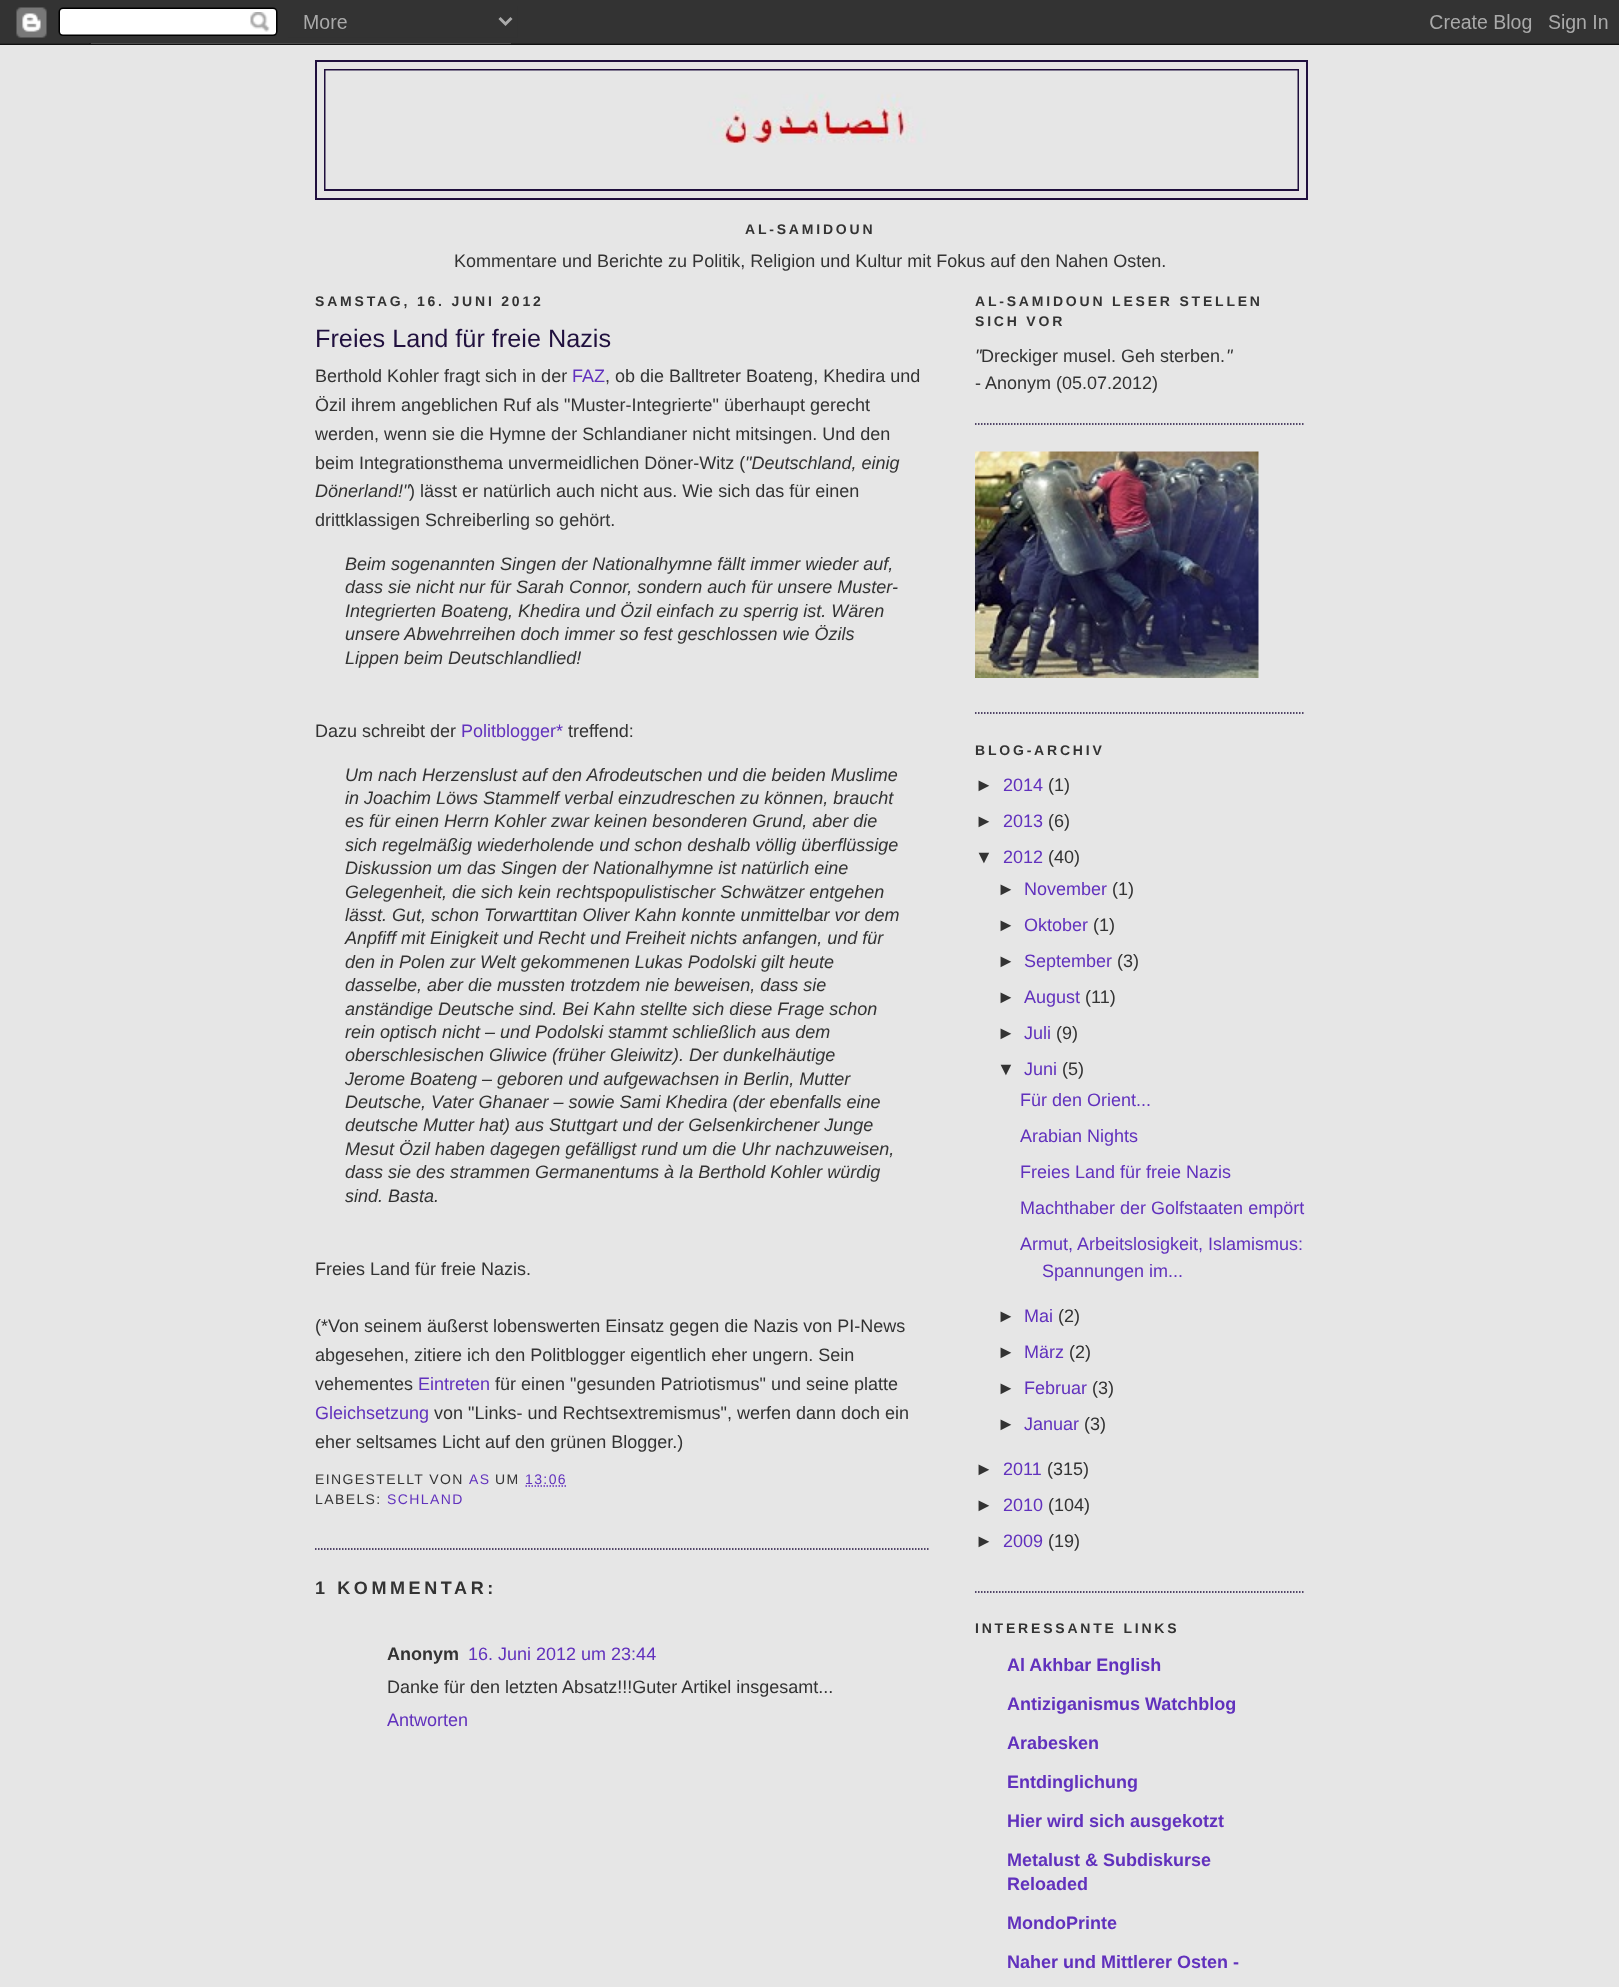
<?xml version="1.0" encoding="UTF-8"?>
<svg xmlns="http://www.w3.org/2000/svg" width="1619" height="1987">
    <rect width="100%" height="100%" fill="#E6E6E6"/>
    <image x="0" y="0" width="1619" height="45" href="img_01.png"/>
    <rect x="316" y="61" width="991" height="138" fill="none" stroke="#20103E" stroke-width="2"/>
    <rect x="325" y="70" width="973" height="120" fill="none" stroke="#20103E" stroke-width="2"/>
    <image x="325" y="70" width="973" height="119" href="img_02.png"/>
    <text x="745" y="234" font-family="Liberation Sans" font-size="14" font-weight="700" letter-spacing="2.8" fill="#333333">AL-SAMIDOUN</text>
    <text x="454" y="267" font-family="Liberation Sans" font-size="18" fill="#333333">Kommentare und Berichte zu Politik, Religion und Kultur mit Fokus auf den Nahen Osten.</text>
    <text x="315" y="306" font-family="Liberation Sans" font-size="14" font-weight="700" letter-spacing="2.8" fill="#333333">SAMSTAG, 16. JUNI 2012</text>
    <path d="M 315 1549 H 930" fill="none" stroke="#20103E" stroke-width="1.5" stroke-dasharray="1.5 1.5"/>
    <text x="315" y="347" font-family="Liberation Sans" font-size="25.25" fill="#20103E">Freies Land für freie Nazis</text>
    <text x="315" y="382" font-family="Liberation Sans" font-size="18" fill="#333333">Berthold Kohler fragt sich in der</text>
    <text x="572" y="382" font-family="Liberation Sans" font-size="18" fill="#6131BD">FAZ</text>
    <text x="605" y="382" font-family="Liberation Sans" font-size="18" fill="#333333">, ob die Balltreter Boateng, Khedira und</text>
    <text font-family="Liberation Sans" font-size="18" fill="#333333">
        <tspan x="315" y="411">Özil ihrem angeblichen Ruf als "Muster-Integrierte" überhaupt gerecht</tspan>
        <tspan x="315" y="440">werden, wenn sie die Hymne der Schlandianer nicht mitsingen. Und den</tspan>
        <tspan x="315" y="469">beim Integrationsthema unvermeidlichen Döner-Witz (</tspan>
    </text>
    <text x="745" y="469" font-family="Liberation Sans" font-size="18" font-style="italic" fill="#333333">"Deutschland, einig</text>
    <text x="315" y="497" font-family="Liberation Sans" font-size="18" font-style="italic" fill="#333333">Dönerland!"</text>
    <text x="409" y="497" font-family="Liberation Sans" font-size="18" fill="#333333">) lässt er natürlich auch nicht aus. Wie sich das für einen</text>
    <text x="315" y="526" font-family="Liberation Sans" font-size="18" fill="#333333">drittklassigen Schreiberling so gehört.</text>
    <text font-family="Liberation Sans" font-size="18" font-style="italic" fill="#333333">
        <tspan x="345" y="570">Beim sogenannten Singen der Nationalhymne fällt immer wieder auf,</tspan>
        <tspan x="345" y="593">dass sie nicht nur für Sarah Connor, sondern auch für unsere Muster-</tspan>
        <tspan x="345" y="617">Integrierten Boateng, Khedira und Özil einfach zu sperrig ist. Wären</tspan>
        <tspan x="345" y="640">unsere Abwehrreihen doch immer so fest geschlossen wie Özils</tspan>
        <tspan x="345" y="664">Lippen beim Deutschlandlied!</tspan>
    </text>
    <text x="315" y="737" font-family="Liberation Sans" font-size="18" fill="#333333">Dazu schreibt der</text>
    <text x="461" y="737" font-family="Liberation Sans" font-size="18" fill="#6131BD">Politblogger*</text>
    <text x="568" y="737" font-family="Liberation Sans" font-size="18" fill="#333333">treffend:</text>
    <text font-family="Liberation Sans" font-size="18" font-style="italic" fill="#333333">
        <tspan x="345" y="781">Um nach Herzenslust auf den Afrodeutschen und die beiden Muslime</tspan>
        <tspan x="345" y="804">in Joachim Löws Stammelf verbal einzudreschen zu können, braucht</tspan>
        <tspan x="345" y="827">es für einen Herrn Kohler zwar keinen besonderen Grund, aber die</tspan>
        <tspan x="345" y="851">sich regelmäßig wiederholende und schon deshalb völlig überflüssige</tspan>
        <tspan x="345" y="874">Diskussion um das Singen der Nationalhymne ist natürlich eine</tspan>
        <tspan x="345" y="898">Gelegenheit, die sich kein rechtspopulistischer Schwätzer entgehen</tspan>
        <tspan x="345" y="921">lässt. Gut, schon Torwarttitan Oliver Kahn konnte unmittelbar vor dem</tspan>
        <tspan x="345" y="944">Anpfiff mit Einigkeit und Recht und Freiheit nichts anfangen, und für</tspan>
        <tspan x="345" y="968">den in Polen zur Welt gekommenen Lukas Podolski gilt heute</tspan>
        <tspan x="345" y="991">dasselbe, aber die mussten trotzdem nie beweisen, dass sie</tspan>
        <tspan x="345" y="1015">anständige Deutsche sind. Bei Kahn stellte sich diese Frage schon</tspan>
        <tspan x="345" y="1038">rein optisch nicht – und Podolski stammt schließlich aus dem</tspan>
        <tspan x="345" y="1061">oberschlesischen Gliwice (früher Gleiwitz). Der dunkelhäutige</tspan>
        <tspan x="345" y="1085">Jerome Boateng – geboren und aufgewachsen in Berlin, Mutter</tspan>
        <tspan x="345" y="1108">Deutsche, Vater Ghanaer – sowie Sami Khedira (der ebenfalls eine</tspan>
        <tspan x="345" y="1131">deutsche Mutter hat) aus Stuttgart und der Gelsenkirchener Junge</tspan>
        <tspan x="345" y="1155">Mesut Özil haben dagegen gefälligst rund um die Uhr nachzuweisen,</tspan>
        <tspan x="345" y="1178">dass sie des strammen Germanentums à la Berthold Kohler würdig</tspan>
        <tspan x="345" y="1202">sind. Basta.</tspan>
    </text>
    <text x="315" y="1275" font-family="Liberation Sans" font-size="18" fill="#333333">Freies Land für freie Nazis.</text>
    <text font-family="Liberation Sans" font-size="18" fill="#333333">
        <tspan x="315" y="1332">(*Von seinem äußerst lobenswerten Einsatz gegen die Nazis von PI-News</tspan>
        <tspan x="315" y="1361">abgesehen, zitiere ich den Politblogger eigentlich eher ungern. Sein</tspan>
        <tspan x="315" y="1390">vehementes</tspan>
    </text>
    <text x="418" y="1390" font-family="Liberation Sans" font-size="18" fill="#6131BD">Eintreten</text>
    <text x="495" y="1390" font-family="Liberation Sans" font-size="18" fill="#333333">für einen "gesunden Patriotismus" und seine platte</text>
    <text x="315" y="1419" font-family="Liberation Sans" font-size="18" fill="#6131BD">Gleichsetzung</text>
    <text x="434" y="1419" font-family="Liberation Sans" font-size="18" fill="#333333">von "Links- und Rechtsextremismus", werfen dann doch ein</text>
    <text x="315" y="1448" font-family="Liberation Sans" font-size="18" fill="#333333">eher seltsames Licht auf den grünen Blogger.)</text>
    <text x="315" y="1484" font-family="Liberation Sans" font-size="14" letter-spacing="1.4" fill="#333333">EINGESTELLT VON</text>
    <text x="469" y="1484" font-family="Liberation Sans" font-size="14" letter-spacing="1.4" fill="#6131BD">AS</text>
    <text x="495" y="1484" font-family="Liberation Sans" font-size="14" letter-spacing="1.4" fill="#333333">UM</text>
    <text x="525" y="1484" font-family="Liberation Sans" font-size="14" letter-spacing="1.4" fill="#6131BD">13:06</text>
    <path d="M 525.5 1486 H 567.5" fill="none" stroke="#6131BD" stroke-width="1.5" stroke-dasharray="1.5 1.5"/>
    <text x="315" y="1504" font-family="Liberation Sans" font-size="14" letter-spacing="1.4" fill="#333333">LABELS:</text>
    <text x="387" y="1504" font-family="Liberation Sans" font-size="14" letter-spacing="1.4" fill="#6131BD">SCHLAND</text>
    <text x="315" y="1594" font-family="Liberation Sans" font-size="18" font-weight="700" letter-spacing="3.6" fill="#333333">1 KOMMENTAR:</text>
    <text x="387" y="1660" font-family="Liberation Sans" font-size="18" font-weight="700" fill="#333333">Anonym</text>
    <text x="468" y="1660" font-family="Liberation Sans" font-size="18" fill="#6131BD">16. Juni 2012 um 23:44</text>
    <text x="387" y="1693" font-family="Liberation Sans" font-size="18" fill="#333333">Danke für den letzten Absatz!!!Guter Artikel insgesamt...</text>
    <text x="387" y="1726" font-family="Liberation Sans" font-size="18" fill="#6131BD">Antworten</text>
    <path d="M 975 424 H 1305" fill="none" stroke="#20103E" stroke-width="1.5" stroke-dasharray="1.5 1.5"/>
    <text font-family="Liberation Sans" font-size="14" font-weight="700" letter-spacing="2.8" fill="#333333">
        <tspan x="975" y="306">AL-SAMIDOUN LESER STELLEN</tspan>
        <tspan x="975" y="326">SICH VOR</tspan>
    </text>
    <text x="975" y="362" font-family="Liberation Sans" font-size="18" font-style="italic" fill="#333333">"</text>
    <text x="981" y="362" font-family="Liberation Sans" font-size="18" fill="#333333">Dreckiger musel. Geh sterben.</text>
    <text x="1226" y="362" font-family="Liberation Sans" font-size="18" font-style="italic" fill="#333333">"</text>
    <text x="975" y="389" font-family="Liberation Sans" font-size="18" fill="#333333">- Anonym (05.07.2012)</text>
    <path d="M 975 713 H 1305" fill="none" stroke="#20103E" stroke-width="1.5" stroke-dasharray="1.5 1.5"/>
    <image x="975" y="451" width="284" height="227" href="img_03.png"/>
    <path d="M 975 1592 H 1305" fill="none" stroke="#20103E" stroke-width="1.5" stroke-dasharray="1.5 1.5"/>
    <text x="975" y="755" font-family="Liberation Sans" font-size="14" font-weight="700" letter-spacing="2.8" fill="#333333">BLOG-ARCHIV</text>
    <text x="975" y="791" font-family="Liberation Sans" font-size="18" fill="#333333">►</text>
    <text x="1003" y="791" font-family="Liberation Sans" font-size="18" fill="#6131BD">2014</text>
    <text x="1048" y="791" font-family="Liberation Sans" font-size="18" fill="#333333">(1)</text>
    <text x="975" y="827" font-family="Liberation Sans" font-size="18" fill="#333333">►</text>
    <text x="1003" y="827" font-family="Liberation Sans" font-size="18" fill="#6131BD">2013</text>
    <text x="1048" y="827" font-family="Liberation Sans" font-size="18" fill="#333333">(6)</text>
    <text x="975" y="863" font-family="Liberation Sans" font-size="18" fill="#333333">▼</text>
    <text x="1003" y="863" font-family="Liberation Sans" font-size="18" fill="#6131BD">2012</text>
    <text x="1048" y="863" font-family="Liberation Sans" font-size="18" fill="#333333">(40)</text>
    <text x="997" y="895" font-family="Liberation Sans" font-size="18" fill="#333333">►</text>
    <text x="1024" y="895" font-family="Liberation Sans" font-size="18" fill="#6131BD">November</text>
    <text x="1112" y="895" font-family="Liberation Sans" font-size="18" fill="#333333">(1)</text>
    <text x="997" y="931" font-family="Liberation Sans" font-size="18" fill="#333333">►</text>
    <text x="1024" y="931" font-family="Liberation Sans" font-size="18" fill="#6131BD">Oktober</text>
    <text x="1093" y="931" font-family="Liberation Sans" font-size="18" fill="#333333">(1)</text>
    <text x="997" y="967" font-family="Liberation Sans" font-size="18" fill="#333333">►</text>
    <text x="1024" y="967" font-family="Liberation Sans" font-size="18" fill="#6131BD">September</text>
    <text x="1117" y="967" font-family="Liberation Sans" font-size="18" fill="#333333">(3)</text>
    <text x="997" y="1003" font-family="Liberation Sans" font-size="18" fill="#333333">►</text>
    <text x="1024" y="1003" font-family="Liberation Sans" font-size="18" fill="#6131BD">August</text>
    <text x="1085" y="1003" font-family="Liberation Sans" font-size="18" fill="#333333">(11)</text>
    <text x="997" y="1039" font-family="Liberation Sans" font-size="18" fill="#333333">►</text>
    <text x="1024" y="1039" font-family="Liberation Sans" font-size="18" fill="#6131BD">Juli</text>
    <text x="1056" y="1039" font-family="Liberation Sans" font-size="18" fill="#333333">(9)</text>
    <text x="997" y="1075" font-family="Liberation Sans" font-size="18" fill="#333333">▼</text>
    <text x="1024" y="1075" font-family="Liberation Sans" font-size="18" fill="#6131BD">Juni</text>
    <text x="1062" y="1075" font-family="Liberation Sans" font-size="18" fill="#333333">(5)</text>
    <text x="1020" y="1106" font-family="Liberation Sans" font-size="18" fill="#6131BD">Für den Orient...</text>
    <text x="1020" y="1142" font-family="Liberation Sans" font-size="18" fill="#6131BD">Arabian Nights</text>
    <text x="1020" y="1178" font-family="Liberation Sans" font-size="18" fill="#6131BD">Freies Land für freie Nazis</text>
    <text x="1020" y="1214" font-family="Liberation Sans" font-size="18" fill="#6131BD">Machthaber der Golfstaaten empört</text>
    <text x="1020" y="1250" font-family="Liberation Sans" font-size="18" fill="#6131BD">Armut, Arbeitslosigkeit, Islamismus:</text>
    <text x="1042" y="1277" font-family="Liberation Sans" font-size="18" fill="#6131BD">Spannungen im...</text>
    <text x="997" y="1322" font-family="Liberation Sans" font-size="18" fill="#333333">►</text>
    <text x="1024" y="1322" font-family="Liberation Sans" font-size="18" fill="#6131BD">Mai</text>
    <text x="1058" y="1322" font-family="Liberation Sans" font-size="18" fill="#333333">(2)</text>
    <text x="997" y="1358" font-family="Liberation Sans" font-size="18" fill="#333333">►</text>
    <text x="1024" y="1358" font-family="Liberation Sans" font-size="18" fill="#6131BD">März</text>
    <text x="1069" y="1358" font-family="Liberation Sans" font-size="18" fill="#333333">(2)</text>
    <text x="997" y="1394" font-family="Liberation Sans" font-size="18" fill="#333333">►</text>
    <text x="1024" y="1394" font-family="Liberation Sans" font-size="18" fill="#6131BD">Februar</text>
    <text x="1092" y="1394" font-family="Liberation Sans" font-size="18" fill="#333333">(3)</text>
    <text x="997" y="1430" font-family="Liberation Sans" font-size="18" fill="#333333">►</text>
    <text x="1024" y="1430" font-family="Liberation Sans" font-size="18" fill="#6131BD">Januar</text>
    <text x="1084" y="1430" font-family="Liberation Sans" font-size="18" fill="#333333">(3)</text>
    <text x="975" y="1475" font-family="Liberation Sans" font-size="18" fill="#333333">►</text>
    <text x="1003" y="1475" font-family="Liberation Sans" font-size="18" fill="#6131BD">2011</text>
    <text x="1047" y="1475" font-family="Liberation Sans" font-size="18" fill="#333333">(315)</text>
    <text x="975" y="1511" font-family="Liberation Sans" font-size="18" fill="#333333">►</text>
    <text x="1003" y="1511" font-family="Liberation Sans" font-size="18" fill="#6131BD">2010</text>
    <text x="1048" y="1511" font-family="Liberation Sans" font-size="18" fill="#333333">(104)</text>
    <text x="975" y="1547" font-family="Liberation Sans" font-size="18" fill="#333333">►</text>
    <text x="1003" y="1547" font-family="Liberation Sans" font-size="18" fill="#6131BD">2009</text>
    <text x="1048" y="1547" font-family="Liberation Sans" font-size="18" fill="#333333">(19)</text>
    <text x="975" y="1633" font-family="Liberation Sans" font-size="14" font-weight="700" letter-spacing="2.8" fill="#333333">INTERESSANTE LINKS</text>
    <text x="1007" y="1671" font-family="Liberation Sans" font-size="18" font-weight="700" fill="#6131BD">Al Akhbar English</text>
    <text x="1007" y="1710" font-family="Liberation Sans" font-size="18" font-weight="700" fill="#6131BD">Antiziganismus Watchblog</text>
    <text x="1007" y="1749" font-family="Liberation Sans" font-size="18" font-weight="700" fill="#6131BD">Arabesken</text>
    <text x="1007" y="1788" font-family="Liberation Sans" font-size="18" font-weight="700" fill="#6131BD">Entdinglichung</text>
    <text x="1007" y="1827" font-family="Liberation Sans" font-size="18" font-weight="700" fill="#6131BD">Hier wird sich ausgekotzt</text>
    <text font-family="Liberation Sans" font-size="18" font-weight="700" fill="#6131BD">
        <tspan x="1007" y="1866">Metalust &amp; Subdiskurse</tspan>
        <tspan x="1007" y="1890">Reloaded</tspan>
    </text>
    <text x="1007" y="1929" font-family="Liberation Sans" font-size="18" font-weight="700" fill="#6131BD">MondoPrinte</text>
    <text x="1007" y="1968" font-family="Liberation Sans" font-size="18" font-weight="700" fill="#6131BD">Naher und Mittlerer Osten -</text>
</svg>
